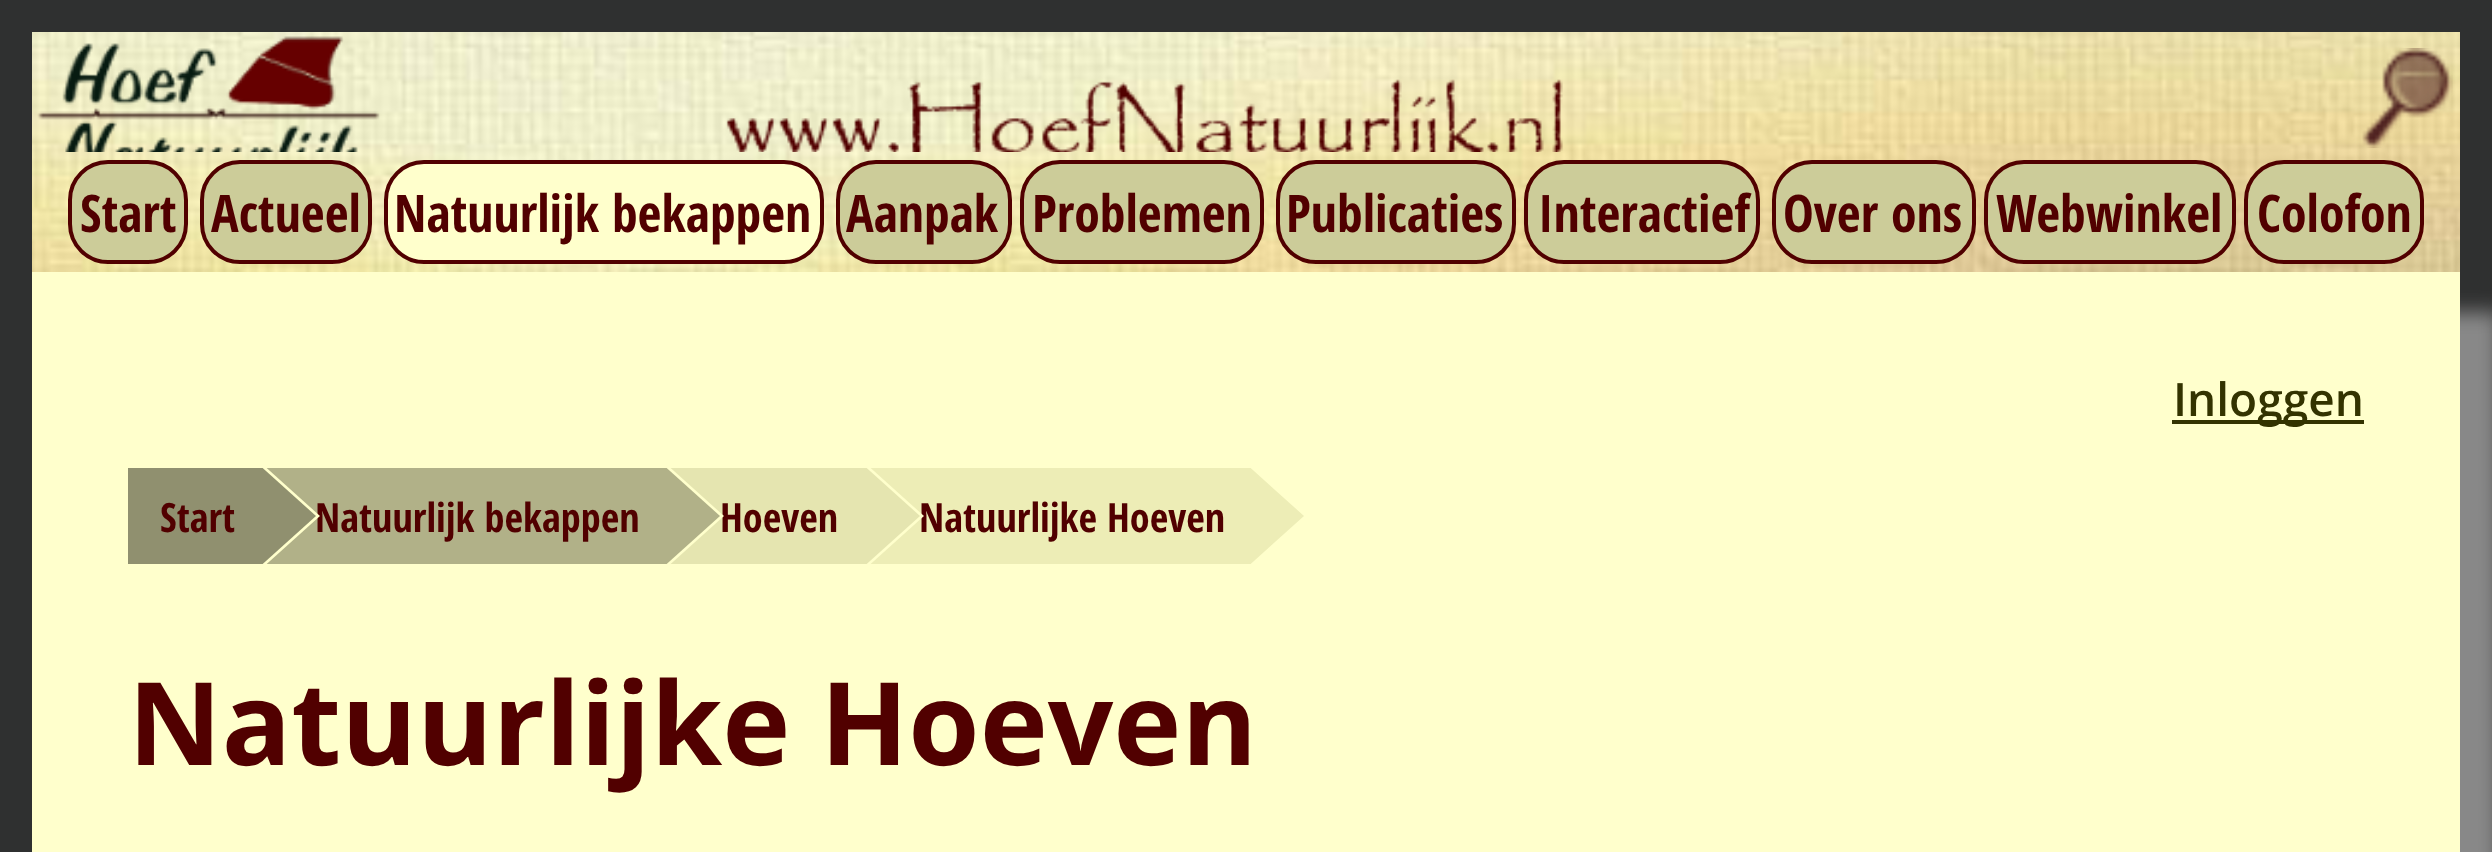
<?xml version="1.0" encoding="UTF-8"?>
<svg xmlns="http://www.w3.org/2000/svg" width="2492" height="852">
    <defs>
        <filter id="blur1" x="-50%" y="-200%" width="200%" height="500%"><feGaussianBlur stdDeviation="10"/></filter>
        <clipPath id="clip1"><rect x="128" y="468" width="2236" height="96"/></clipPath>
    </defs>
    <rect width="100%" height="100%" fill="#2F3030"/>
    <image x="32" y="32" width="2428" height="240" href="img_01.png"/>
    <image x="37" y="36" width="1526" height="116" href="img_02.png"/>
    <image x="2362" y="48" width="91" height="100" href="img_03.png"/>
    <rect x="70" y="162" width="116" height="100" rx="38" fill="#CCCC99" stroke="#510000" stroke-width="4"/>
    <text x="80" y="232" font-family="Open Sans Condensed" font-size="51.75" font-weight="700" fill="#510000">Start</text>
    <rect x="202" y="162" width="168" height="100" rx="38" fill="#CCCC99" stroke="#510000" stroke-width="4"/>
    <text x="211" y="232" font-family="Open Sans Condensed" font-size="51.75" font-weight="700" fill="#510000">Actueel</text>
    <rect x="386" y="162" width="436" height="100" rx="38" fill="#FFFFCC" stroke="#510000" stroke-width="4"/>
    <text x="394" y="232" font-family="Open Sans Condensed" font-size="51.75" font-weight="700" fill="#510000">Natuurlijk bekappen</text>
    <rect x="838" y="162" width="172" height="100" rx="38" fill="#CCCC99" stroke="#510000" stroke-width="4"/>
    <text x="846" y="232" font-family="Open Sans Condensed" font-size="51.75" font-weight="700" fill="#510000">Aanpak</text>
    <rect x="1022" y="162" width="240" height="100" rx="38" fill="#CCCC99" stroke="#510000" stroke-width="4"/>
    <text x="1032" y="232" font-family="Open Sans Condensed" font-size="51.75" font-weight="700" fill="#510000">Problemen</text>
    <rect x="1278" y="162" width="236" height="100" rx="38" fill="#CCCC99" stroke="#510000" stroke-width="4"/>
    <text x="1286" y="232" font-family="Open Sans Condensed" font-size="51.75" font-weight="700" fill="#510000">Publicaties</text>
    <rect x="1526" y="162" width="232" height="100" rx="38" fill="#CCCC99" stroke="#510000" stroke-width="4"/>
    <text x="1538" y="232" font-family="Open Sans Condensed" font-size="51.75" font-weight="700" fill="#510000">Interactief</text>
    <rect x="1774" y="162" width="200" height="100" rx="38" fill="#CCCC99" stroke="#510000" stroke-width="4"/>
    <text x="1783" y="232" font-family="Open Sans Condensed" font-size="51.75" font-weight="700" fill="#510000">Over ons</text>
    <rect x="1986" y="162" width="248" height="100" rx="38" fill="#CCCC99" stroke="#510000" stroke-width="4"/>
    <text x="1996" y="232" font-family="Open Sans Condensed" font-size="51.75" font-weight="700" fill="#510000">Webwinkel</text>
    <rect x="2246" y="162" width="176" height="100" rx="38" fill="#CCCC99" stroke="#510000" stroke-width="4"/>
    <text x="2257" y="232" font-family="Open Sans Condensed" font-size="51.75" font-weight="700" fill="#510000">Colofon</text>
    <rect x="72" y="312" width="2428" height="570" fill="#888888" filter="url(#blur1)"/>
    <rect x="32" y="272" width="2428" height="580" fill="#FFFFCC"/>
    <rect x="2172" y="420" width="192" height="4" fill="#333300"/>
    <text x="2173" y="416" font-family="Open Sans" font-size="46" font-weight="600" fill="#333300">Inloggen</text>
    <rect x="128" y="468" width="108" height="96" fill="#90906F"/>
    <rect x="266" y="468" width="374" height="96" fill="#B1B188"/>
    <text x="315" y="532" font-family="Open Sans Condensed" font-size="40.25" font-weight="700" fill="#510000">Natuurlijk bekappen</text>
    <g clip-path="url(#clip1)">
        <path d="M 240 588 V 444 L 320 516 Z" fill="#FFFFCC"/>
        <path d="M 236 588 V 444 L 316 516 Z" fill="#90906F"/>
    </g>
    <text x="160" y="532" font-family="Open Sans Condensed" font-size="40.25" font-weight="700" fill="#510000">Start</text>
    <rect x="670" y="468" width="170" height="96" fill="#E5E5B0"/>
    <text x="720" y="532" font-family="Open Sans Condensed" font-size="40.25" font-weight="700" fill="#510000">Hoeven</text>
    <g clip-path="url(#clip1)">
        <path d="M 644 588 V 444 L 724 516 Z" fill="#FFFFCC"/>
        <path d="M 640 588 V 444 L 720 516 Z" fill="#B1B188"/>
    </g>
    <rect x="870" y="468" width="354" height="96" fill="#EDEDB6"/>
    <text x="919" y="532" font-family="Open Sans Condensed" font-size="40.25" font-weight="700" fill="#510000">Natuurlijke Hoeven</text>
    <g clip-path="url(#clip1)">
        <path d="M 844 588 V 444 L 924 516 Z" fill="#FFFFCC"/>
        <path d="M 840 588 V 444 L 920 516 Z" fill="#E5E5B0"/>
        <path d="M 1224 588 V 444 L 1304 516 Z" fill="#EDEDB6"/>
    </g>
    <text x="128" y="765" font-family="Open Sans" font-size="115.25" font-weight="700" fill="#510000">Natuurlijke Hoeven</text>
</svg>
